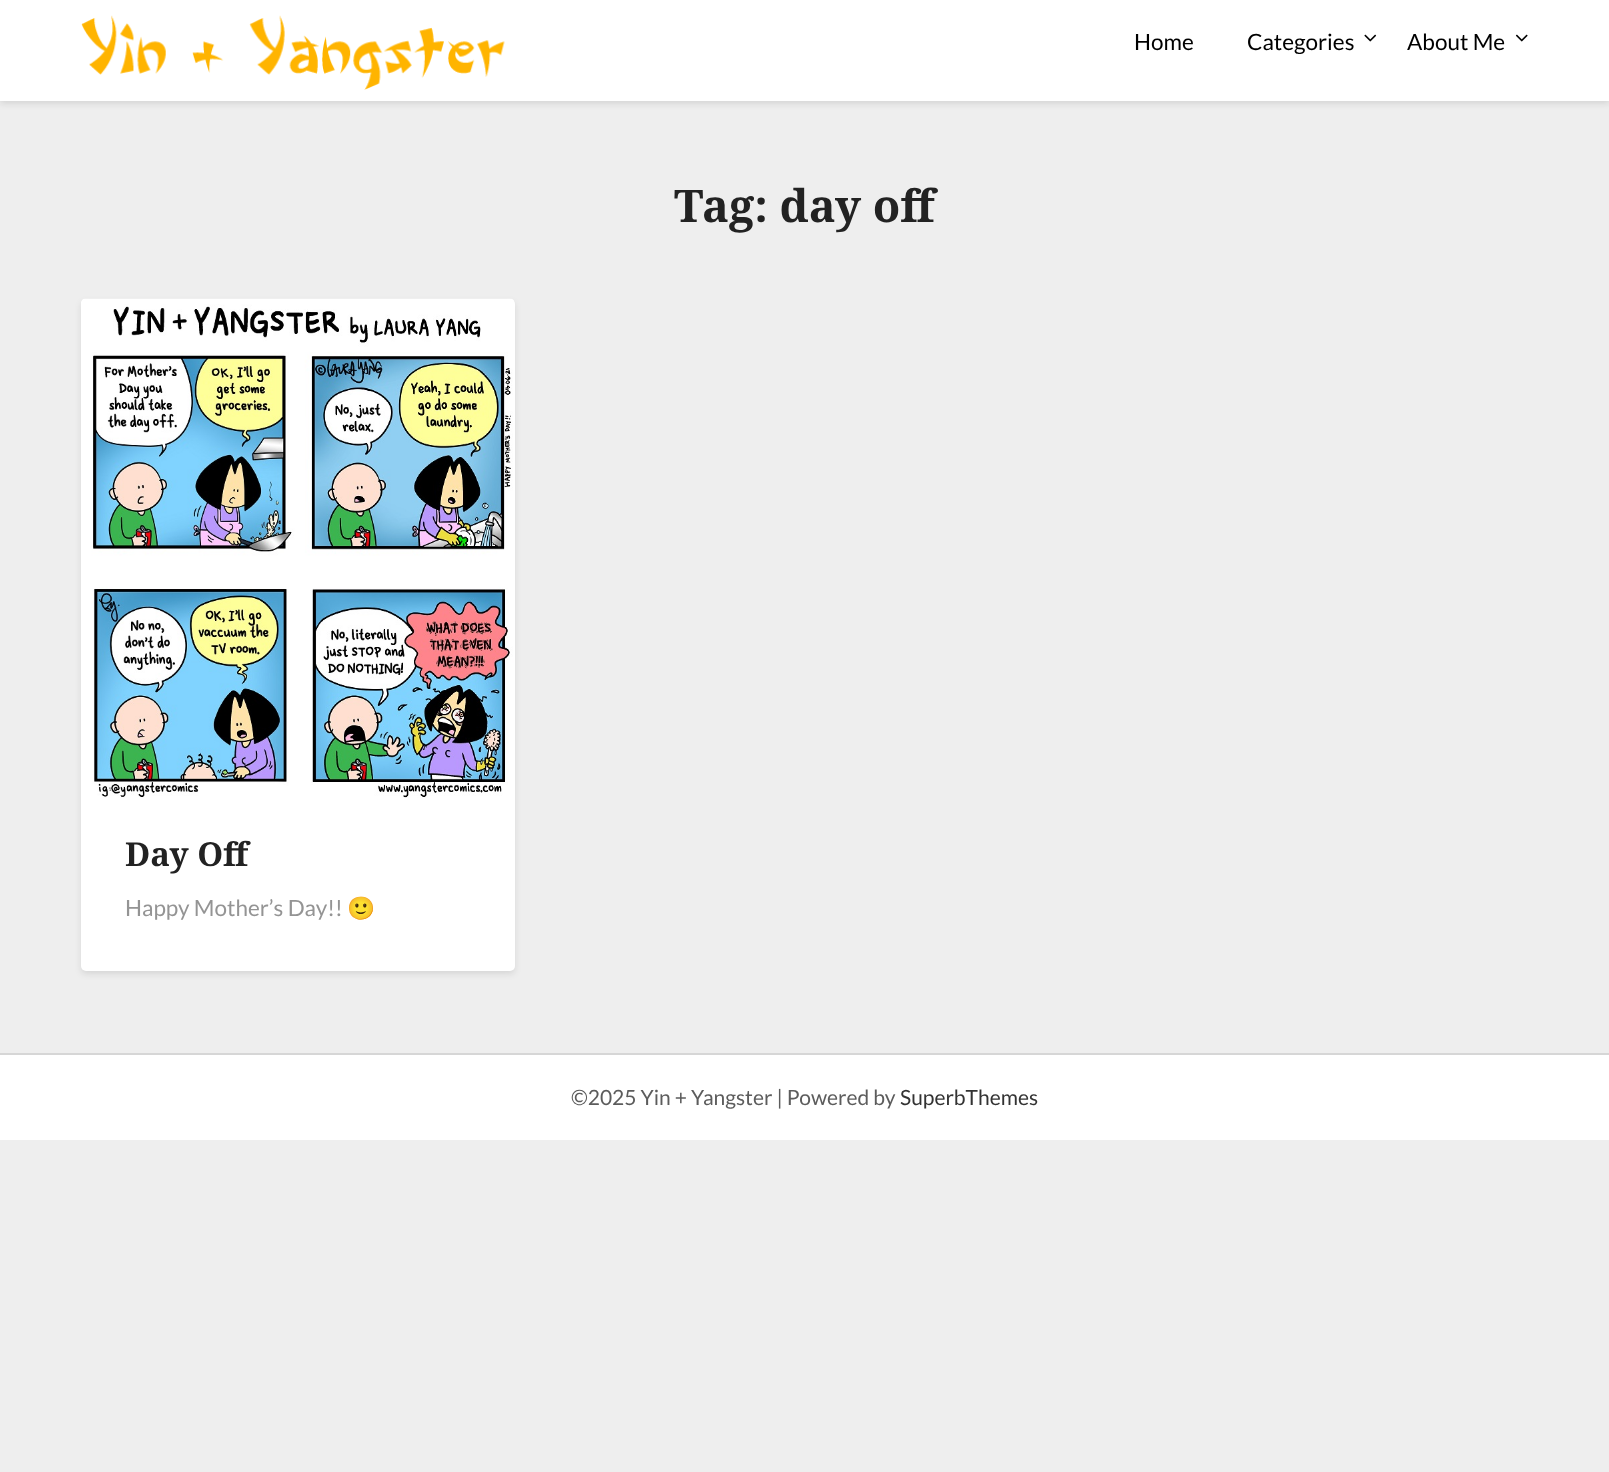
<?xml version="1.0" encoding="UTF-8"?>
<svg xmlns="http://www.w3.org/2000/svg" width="1609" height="1472">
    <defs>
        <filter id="blur1" x="-50%" y="-200%" width="200%" height="500%"><feGaussianBlur stdDeviation="3"/></filter>
    </defs>
    <rect width="100%" height="100%" fill="#EEEEEE"/>
    <rect x="0" y="3" width="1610" height="101" fill="#000000" fill-opacity="0.1" filter="url(#blur1)"/>
    <rect x="0" y="0" width="1609" height="101" fill="#FFFFFF"/>
    <image x="81" y="15" width="424" height="75" href="img_01.png"/>
    <text x="1134" y="50" font-family="Lato" font-size="22.5" fill="#000000">Home</text>
    <text x="1247" y="50" font-family="Lato" font-size="22.5" fill="#000000">Categories</text>
    <image x="1364" y="34" width="13" height="8" href="img_02.png"/>
    <text x="1407" y="50" font-family="Lato" font-size="22.5" fill="#000000">About Me</text>
    <image x="1515" y="34" width="13" height="8" href="img_03.png"/>
    <text x="674" y="222" font-family="Noto Serif" font-size="45" font-weight="700" fill="#222222">Tag: day off</text>
    <rect x="81" y="302" width="434" height="672" rx="5" fill="#000000" fill-opacity="0.1" filter="url(#blur1)"/>
    <rect x="81" y="299" width="434" height="672" rx="5" fill="#FFFFFF"/>
    <image x="81" y="298" width="433" height="500" href="img_04.png"/>
    <text x="125" y="866" font-family="Noto Serif" font-size="33" font-weight="700" fill="#222222">Day Off</text>
    <text x="125" y="916" font-family="Lato" font-size="22.5" fill="#949494">Happy Mother’s Day!!</text>
    <text x="347" y="916" font-family="Noto Color Emoji" font-size="22.5" fill="#949494">🙂</text>
    <rect x="0" y="1055" width="1609" height="85" fill="#FFFFFF"/>
    <rect x="0" y="1053" width="1609" height="2" fill="#D6D6D6"/>
    <text x="571" y="1105" font-family="Lato" font-size="21" fill="#5C5C5C">©2025 Yin + Yangster | Powered by</text>
    <text x="900" y="1105" font-family="Lato" font-size="21" fill="#333333">SuperbThemes</text>
</svg>
